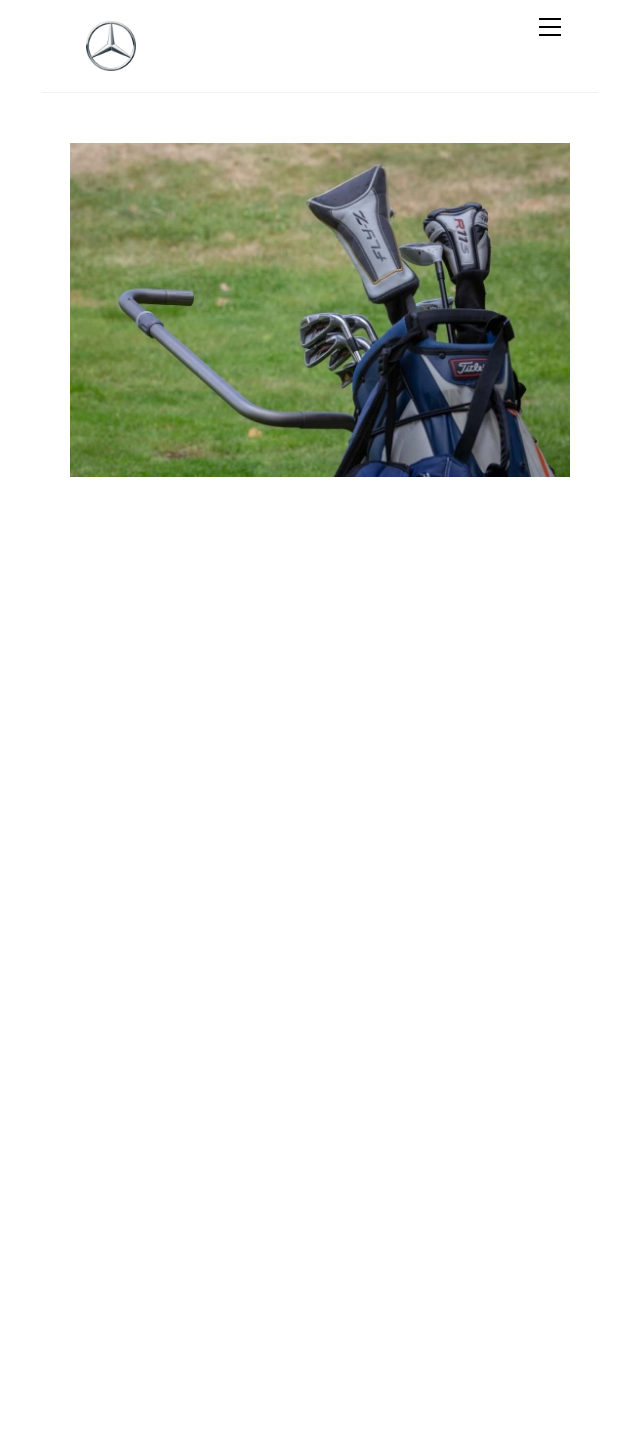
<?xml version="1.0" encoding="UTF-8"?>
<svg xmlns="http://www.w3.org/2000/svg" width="640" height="1452">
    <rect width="100%" height="100%" fill="#FFFFFF"/>
    <rect x="42" y="92" width="556" height="1" fill="#F2F2F2"/>
    <image x="86" y="21" width="50" height="50" href="img_01.png"/>
    <rect x="539" y="34" width="22" height="2" fill="#000000"/>
    <rect x="539" y="18" width="22" height="2" fill="#000000"/>
    <rect x="539" y="26" width="22" height="2" fill="#000000"/>
    <image x="70" y="143" width="500" height="334" href="img_02.png"/>
</svg>
